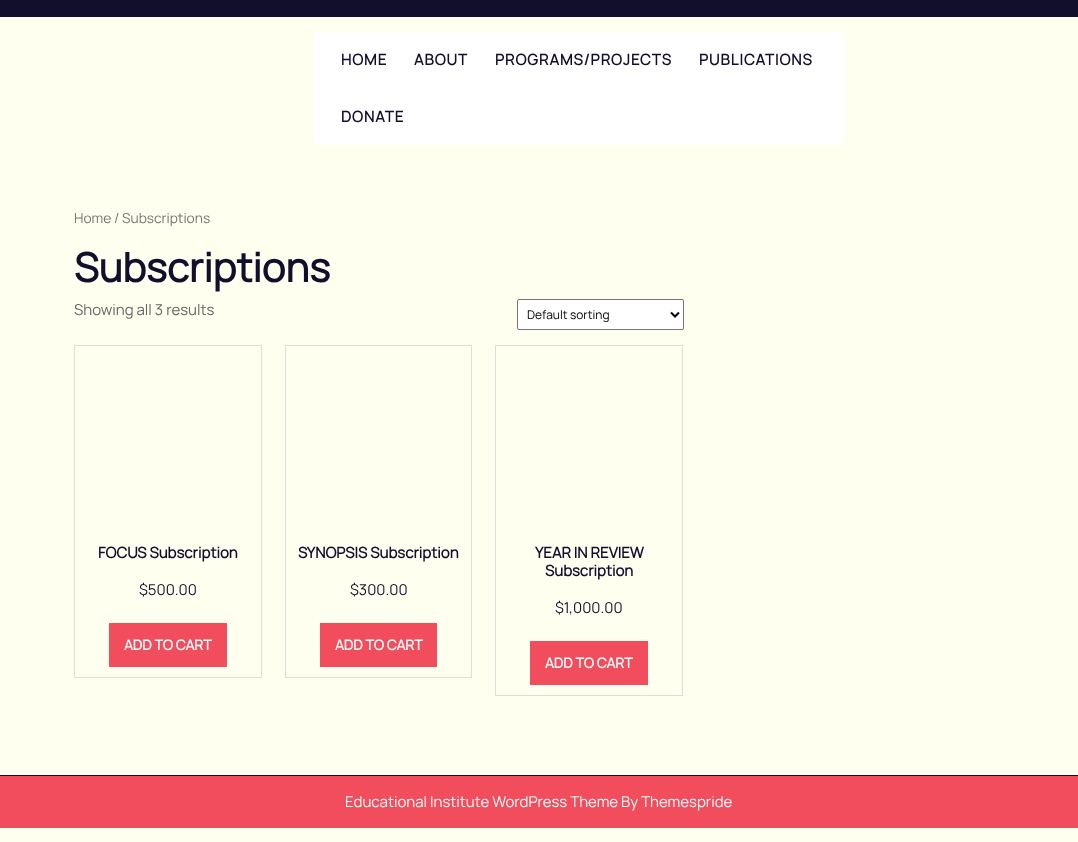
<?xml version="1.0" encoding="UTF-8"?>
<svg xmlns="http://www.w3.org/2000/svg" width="1078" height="842">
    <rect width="100%" height="100%" fill="#FFFFF0"/>
    <rect x="0" y="0" width="1078" height="17" fill="#120F2D"/>
    <rect x="314" y="32" width="530" height="113" fill="#FFFFFF"/>
    <text x="341" y="65" font-family="Manrope" font-size="15" font-weight="700" letter-spacing="1" fill="#120F2D">HOME</text>
    <text x="414" y="65" font-family="Manrope" font-size="15" font-weight="700" letter-spacing="1" fill="#120F2D">ABOUT</text>
    <text x="495" y="65" font-family="Manrope" font-size="15" font-weight="700" letter-spacing="1" fill="#120F2D">PROGRAMS/PROJECTS</text>
    <text x="699" y="65" font-family="Manrope" font-size="15" font-weight="700" letter-spacing="1" fill="#120F2D">PUBLICATIONS</text>
    <text x="341" y="122" font-family="Manrope" font-size="15" font-weight="700" letter-spacing="1" fill="#120F2D">DONATE</text>
    <text x="74" y="223" font-family="Manrope" font-size="13.75" font-weight="200" fill="#767676">Home / Subscriptions</text>
    <text x="74" y="282" font-family="Manrope" font-size="40" font-weight="700" fill="#120F2D">Subscriptions</text>
    <text x="74" y="315" font-family="Manrope" font-size="15" font-weight="200" fill="#676767">Showing all 3 results</text>
    <rect x="517.5" y="299.5" width="166" height="30" rx="1.5" fill="#FFFFFF" stroke="#767676"/>
    <path d="M 671 312.5 L 675 316.5 L 679 312.5" fill="none" stroke="#000000" stroke-width="2"/>
    <text x="527" y="319" font-family="Manrope" font-size="12" font-weight="200" fill="#000000">Default sorting</text>
    <rect x="74.5" y="345.5" width="187" height="332" fill="none" stroke="#DDDDDD"/>
    <text x="98" y="558" font-family="Manrope" font-size="15" font-weight="700" fill="#120F2D">FOCUS Subscription</text>
    <text x="139" y="595" font-family="Manrope" font-size="15" font-weight="200" fill="#120F2D">$500.00</text>
    <rect x="109" y="623" width="118" height="44" fill="#F14D5D"/>
    <text x="124" y="650" font-family="Manrope" font-size="14" font-weight="700" fill="#FFFFFF">ADD TO CART</text>
    <rect x="285.5" y="345.5" width="186" height="332" fill="none" stroke="#DDDDDD"/>
    <text x="298" y="558" font-family="Manrope" font-size="15" font-weight="700" fill="#120F2D">SYNOPSIS Subscription</text>
    <text x="350" y="595" font-family="Manrope" font-size="15" font-weight="200" fill="#120F2D">$300.00</text>
    <rect x="320" y="623" width="117" height="44" fill="#F14D5D"/>
    <text x="335" y="650" font-family="Manrope" font-size="14" font-weight="700" fill="#FFFFFF">ADD TO CART</text>
    <rect x="495.5" y="345.5" width="187" height="350" fill="none" stroke="#DDDDDD"/>
    <text x="535" y="558" font-family="Manrope" font-size="15" font-weight="700" fill="#120F2D">YEAR IN REVIEW</text>
    <text x="545" y="576" font-family="Manrope" font-size="15" font-weight="700" fill="#120F2D">Subscription</text>
    <text x="555" y="613" font-family="Manrope" font-size="15" font-weight="200" fill="#120F2D">$1,000.00</text>
    <rect x="530" y="641" width="118" height="44" fill="#F14D5D"/>
    <text x="545" y="668" font-family="Manrope" font-size="14" font-weight="700" fill="#FFFFFF">ADD TO CART</text>
    <rect x="0" y="775" width="1078" height="1" fill="#120F2D"/>
    <rect x="0" y="776" width="1078" height="52" fill="#F14D5D"/>
    <text x="345" y="807" font-family="Manrope" font-size="15" font-weight="200" fill="#FFFFFF">Educational Institute WordPress Theme By Themespride</text>
</svg>
